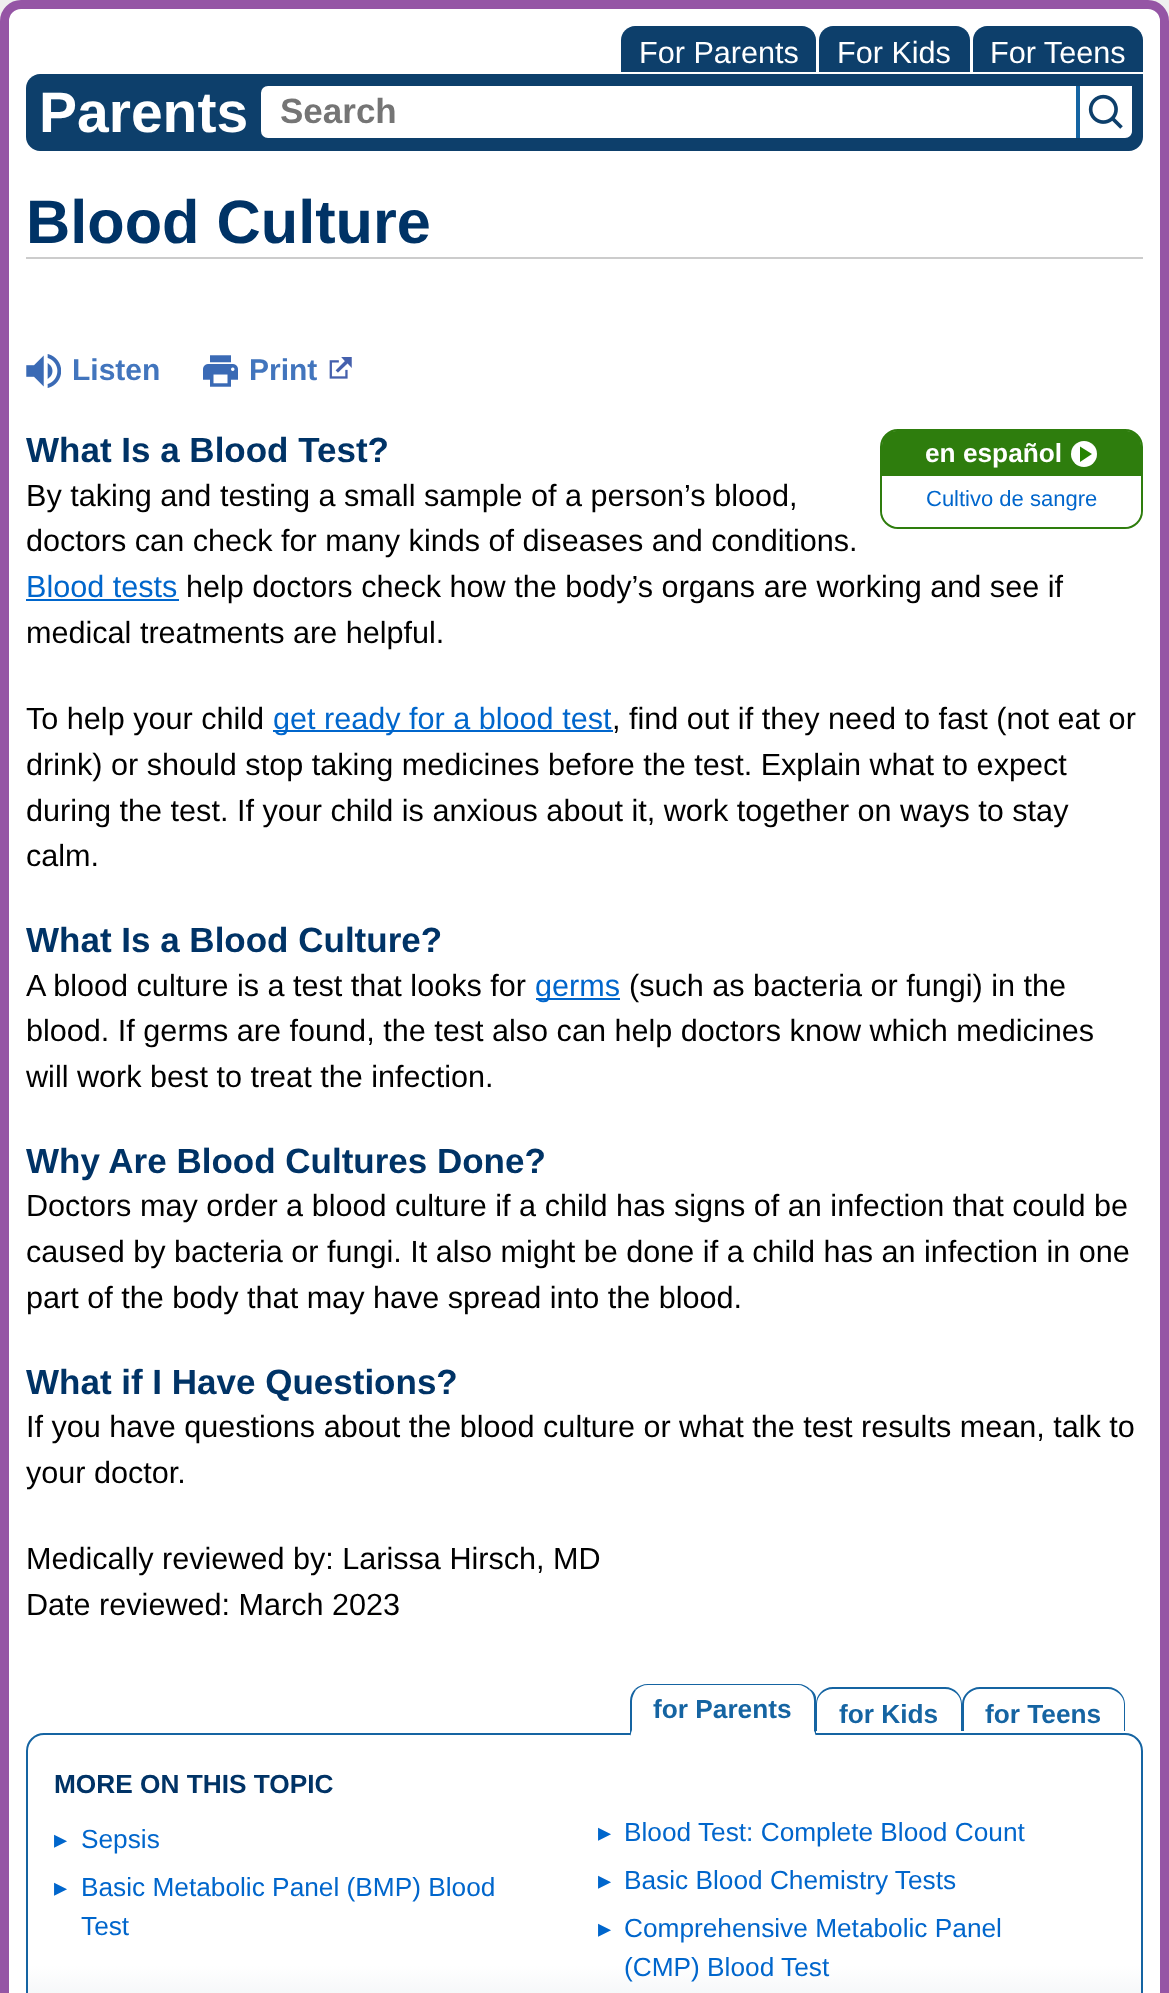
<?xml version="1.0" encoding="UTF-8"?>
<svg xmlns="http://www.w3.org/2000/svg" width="1169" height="1993">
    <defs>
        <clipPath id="clip1"><path d="M 44 1733 H 1125 C 1135 1733 1143 1741 1143 1751 V 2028 H 26 V 1751 C 26 1741 34 1733 44 1733 Z"/></clipPath>
        <linearGradient id="g1" gradientUnits="userSpaceOnUse" x1="585" y1="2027" x2="585" y2="1734"><stop offset="0" stop-color="#EBEFF3"/><stop offset="0.21" stop-color="#FFFFFF"/></linearGradient>
    </defs>
    <rect width="100%" height="100%" fill="#EFEFEF"/>
    <rect x="4.5" y="4.5" width="1160" height="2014" rx="16.5" fill="#FFFFFF" stroke="#9555A5" stroke-width="9"/>
    <path d="M 635 26 H 802 C 809.5 26 816 32.5 816 40 V 72 H 621 V 40 C 621 32.5 627.5 26 635 26 Z" fill="#0D3F6B"/>
    <text x="639" y="63" font-family="Liberation Sans" font-size="30.6" fill="#FFFFFF">For Parents</text>
    <path d="M 833 26 H 956 C 963.5 26 970 32.5 970 40 V 72 H 819 V 40 C 819 32.5 825.5 26 833 26 Z" fill="#0D3F6B"/>
    <text x="837" y="63" font-family="Liberation Sans" font-size="30.6" fill="#FFFFFF">For Kids</text>
    <path d="M 987 26 H 1129 C 1136.5 26 1143 32.5 1143 40 V 72 H 973 V 40 C 973 32.5 979.5 26 987 26 Z" fill="#0D3F6B"/>
    <text x="990" y="63" font-family="Liberation Sans" font-size="30.6" fill="#FFFFFF">For Teens</text>
    <path d="M 40 74 H 1143 V 137 C 1143 144.5 1136.5 151 1129 151 H 40 C 32.5 151 26 144.5 26 137 V 88 C 26 80.5 32.5 74 40 74 Z" fill="#0D3F6B"/>
    <text x="39" y="132" font-family="Liberation Sans" font-size="57" font-weight="700" fill="#FFFFFF">Parents</text>
    <path d="M 268 91.5 H 1070.5 V 132.5 H 268 C 267 132.5 266.5 132 266.5 131 V 93 C 266.5 92 267 91.5 268 91.5 Z" fill="#FFFFFF" stroke="#FFFFFF" stroke-width="11"/>
    <text x="280" y="123" font-family="Liberation Sans" font-size="35" font-weight="700" fill="#757575">Search</text>
    <rect x="1076" y="86" width="4" height="52" fill="#1564A2"/>
    <path d="M 1080 86 H 1132 V 131 C 1132 135 1129 138 1125 138 H 1080 Z" fill="#FFFFFF"/>
    <image x="1088" y="94" width="35" height="35" href="img_01.png"/>
    <rect x="26" y="257" width="1117" height="2" fill="#CCCCCC"/>
    <text x="26" y="243" font-family="Liberation Sans" font-size="61.25" font-weight="700" fill="#003366">Blood Culture</text>
    <image x="26" y="354" width="35" height="34" href="img_02.png"/>
    <text x="72" y="380" font-family="Liberation Sans" font-size="30" font-weight="700" fill="#4275BD">Listen</text>
    <image x="203" y="355" width="35" height="32" href="img_03.png"/>
    <text x="249" y="380" font-family="Liberation Sans" font-size="30" font-weight="700" fill="#4275BD">Print</text>
    <image x="329" y="357" width="23" height="22" href="img_04.png"/>
    <text x="26" y="462" font-family="Liberation Sans" font-size="35" font-weight="700" fill="#003366">What Is a Blood Test?</text>
    <text font-family="Liberation Sans" font-size="30.6" fill="#000000">
        <tspan x="26" y="506">By taking and testing a small sample of a person’s blood,</tspan>
        <tspan x="26" y="551">doctors can check for many kinds of diseases and conditions.</tspan>
    </text>
    <text x="26" y="597" font-family="Liberation Sans" font-size="30.6" fill="#0066CC">Blood tests</text>
    <rect x="26" y="599" width="153" height="2" fill="#0066CC"/>
    <text x="186" y="597" font-family="Liberation Sans" font-size="30.6" fill="#000000">help doctors check how the body’s organs are working and see if</text>
    <text x="26" y="643" font-family="Liberation Sans" font-size="30.6" fill="#000000">medical treatments are helpful.</text>
    <text x="26" y="729" font-family="Liberation Sans" font-size="30.6" fill="#000000">To help your child</text>
    <rect x="273" y="730" width="340" height="2" fill="#0066CC"/>
    <text x="273" y="729" font-family="Liberation Sans" font-size="30.6" fill="#0066CC">get ready for a blood test</text>
    <text x="612" y="729" font-family="Liberation Sans" font-size="30.6" fill="#000000">, find out if they need to fast (not eat or</text>
    <text font-family="Liberation Sans" font-size="30.6" fill="#000000">
        <tspan x="26" y="775">drink) or should stop taking medicines before the test. Explain what to expect</tspan>
        <tspan x="26" y="821">during the test. If your child is anxious about it, work together on ways to stay</tspan>
        <tspan x="26" y="866">calm.</tspan>
    </text>
    <text x="26" y="952" font-family="Liberation Sans" font-size="35" font-weight="700" fill="#003366">What Is a Blood Culture?</text>
    <text x="26" y="996" font-family="Liberation Sans" font-size="30.6" fill="#000000">A blood culture is a test that looks for</text>
    <rect x="536" y="998" width="84" height="2" fill="#0066CC"/>
    <text x="535" y="996" font-family="Liberation Sans" font-size="30.6" fill="#0066CC">germs</text>
    <text x="629" y="996" font-family="Liberation Sans" font-size="30.6" fill="#000000">(such as bacteria or fungi) in the</text>
    <text font-family="Liberation Sans" font-size="30.6" fill="#000000">
        <tspan x="26" y="1041">blood. If germs are found, the test also can help doctors know which medicines</tspan>
        <tspan x="26" y="1087">will work best to treat the infection.</tspan>
    </text>
    <text x="26" y="1173" font-family="Liberation Sans" font-size="35" font-weight="700" fill="#003366">Why Are Blood Cultures Done?</text>
    <text font-family="Liberation Sans" font-size="30.6" fill="#000000">
        <tspan x="26" y="1216">Doctors may order a blood culture if a child has signs of an infection that could be</tspan>
        <tspan x="26" y="1262">caused by bacteria or fungi. It also might be done if a child has an infection in one</tspan>
        <tspan x="26" y="1308">part of the body that may have spread into the blood.</tspan>
    </text>
    <text x="26" y="1394" font-family="Liberation Sans" font-size="35" font-weight="700" fill="#003366">What if I Have Questions?</text>
    <text font-family="Liberation Sans" font-size="30.6" fill="#000000">
        <tspan x="26" y="1437">If you have questions about the blood culture or what the test results mean, talk to</tspan>
        <tspan x="26" y="1483">your doctor.</tspan>
    </text>
    <rect x="881" y="430" width="261" height="98" rx="17" fill="none" stroke="#2E7D0D" stroke-width="2"/>
    <path d="M 896 431 H 1127 C 1134.5 431 1141 437.5 1141 445 V 476 H 882 V 445 C 882 437.5 888.5 431 896 431 Z" fill="#2E7D0D"/>
    <text x="925" y="462" font-family="Liberation Sans" font-size="26.25" font-weight="700" fill="#FFFFFF">en español</text>
    <circle cx="1084" cy="454" r="13" fill="#FFFFFF"/>
    <path d="M 1080 446.5 V 462 L 1092 454 Z" fill="#258300" fill-rule="evenodd"/>
    <path d="M 882 476 H 1141 V 509 C 1141 519 1133 527 1123 527 H 900 C 890 527 882 519 882 509 Z" fill="#FFFFFF"/>
    <text x="926" y="506" font-family="Liberation Sans" font-size="22" fill="#0066CC">Cultivo de sangre</text>
    <text font-family="Liberation Sans" font-size="30.6" fill="#000000">
        <tspan x="26" y="1569">Medically reviewed by: Larissa Hirsch, MD</tspan>
        <tspan x="26" y="1615">Date reviewed: March 2023</tspan>
    </text>
    <path d="M 648 1684 C 643 1684 638 1686 635 1689 L 636 1690 C 639 1687 643 1685 648 1685 H 798 C 802 1685 806 1687 809 1690 L 810 1689 C 807 1686 803 1684 798 1684 Z" fill="#1564A2"/>
    <g clip-path="url(#clip1)">
        <rect x="26" y="1734" width="1117" height="259" fill="url(#g1)"/>
    </g>
    <path d="M 44 1734 H 1125 C 1134.5 1734 1142 1741.5 1142 1751 V 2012 H 27 V 1751 C 27 1741.5 34.5 1734 44 1734 Z" fill="none" stroke="#1564A2" stroke-width="2"/>
    <path d="M 810 1689 C 813 1691 815 1693 816 1697 V 1736 L 814 1731 V 1701 C 814 1696 812 1692 809 1690 Z" fill="#1564A2"/>
    <path d="M 816 1736 L 814 1731 H 632 V 1730 L 630 1736 Z" fill="#FFFFFF"/>
    <path d="M 630 1736 L 632 1730 V 1701 C 632 1697 634 1693 636 1690 L 635 1689 C 632 1692 630 1696 630 1701 Z" fill="#1564A2"/>
    <text x="653" y="1718" font-family="Liberation Sans" font-size="26.25" font-weight="700" fill="#1564A2">for Parents</text>
    <path d="M 833 1687 H 945 C 955 1687 962 1695 962 1704 V 1731 H 816 V 1704 C 816 1695 823 1687 833 1687 Z M 833 1689 H 945 C 954 1689 961 1696 961 1704 V 1731 H 817 V 1704 C 817 1696 824 1689 833 1689 Z" fill="#1564A2" fill-rule="evenodd"/>
    <text x="839" y="1723" font-family="Liberation Sans" font-size="26.25" font-weight="700" fill="#1564A2">for Kids</text>
    <path d="M 980 1687 H 1108 C 1117 1687 1125 1695 1125 1704 V 1731 H 962 V 1704 C 962 1695 970 1687 980 1687 Z M 980 1689 H 1108 C 1116 1689 1124 1696 1124 1704 V 1731 H 964 V 1704 C 964 1696 971 1689 980 1689 Z" fill="#1564A2" fill-rule="evenodd"/>
    <text x="985" y="1723" font-family="Liberation Sans" font-size="26.25" font-weight="700" fill="#1564A2">for Teens</text>
    <text x="54" y="1793" font-family="Liberation Sans" font-size="26.25" font-weight="700" fill="#003366">MORE ON THIS TOPIC</text>
    <text x="54" y="1848" font-family="DejaVu Sans" font-size="26.25" fill="#0066CC">▸</text>
    <text x="81" y="1848" font-family="Liberation Sans" font-size="26.25" fill="#0066CC">Sepsis</text>
    <text x="598" y="1841" font-family="DejaVu Sans" font-size="26.25" fill="#0066CC">▸</text>
    <text x="624" y="1841" font-family="Liberation Sans" font-size="26.25" fill="#0066CC">Blood Test: Complete Blood Count</text>
    <text x="54" y="1896" font-family="DejaVu Sans" font-size="26.25" fill="#0066CC">▸</text>
    <text font-family="Liberation Sans" font-size="26.25" fill="#0066CC">
        <tspan x="81" y="1896">Basic Metabolic Panel (BMP) Blood</tspan>
        <tspan x="81" y="1935">Test</tspan>
    </text>
    <text x="598" y="1889" font-family="DejaVu Sans" font-size="26.25" fill="#0066CC">▸</text>
    <text x="624" y="1889" font-family="Liberation Sans" font-size="26.25" fill="#0066CC">Basic Blood Chemistry Tests</text>
    <text x="598" y="1937" font-family="DejaVu Sans" font-size="26.25" fill="#0066CC">▸</text>
    <text font-family="Liberation Sans" font-size="26.25" fill="#0066CC">
        <tspan x="624" y="1937">Comprehensive Metabolic Panel</tspan>
        <tspan x="624" y="1976">(CMP) Blood Test</tspan>
    </text>
</svg>
